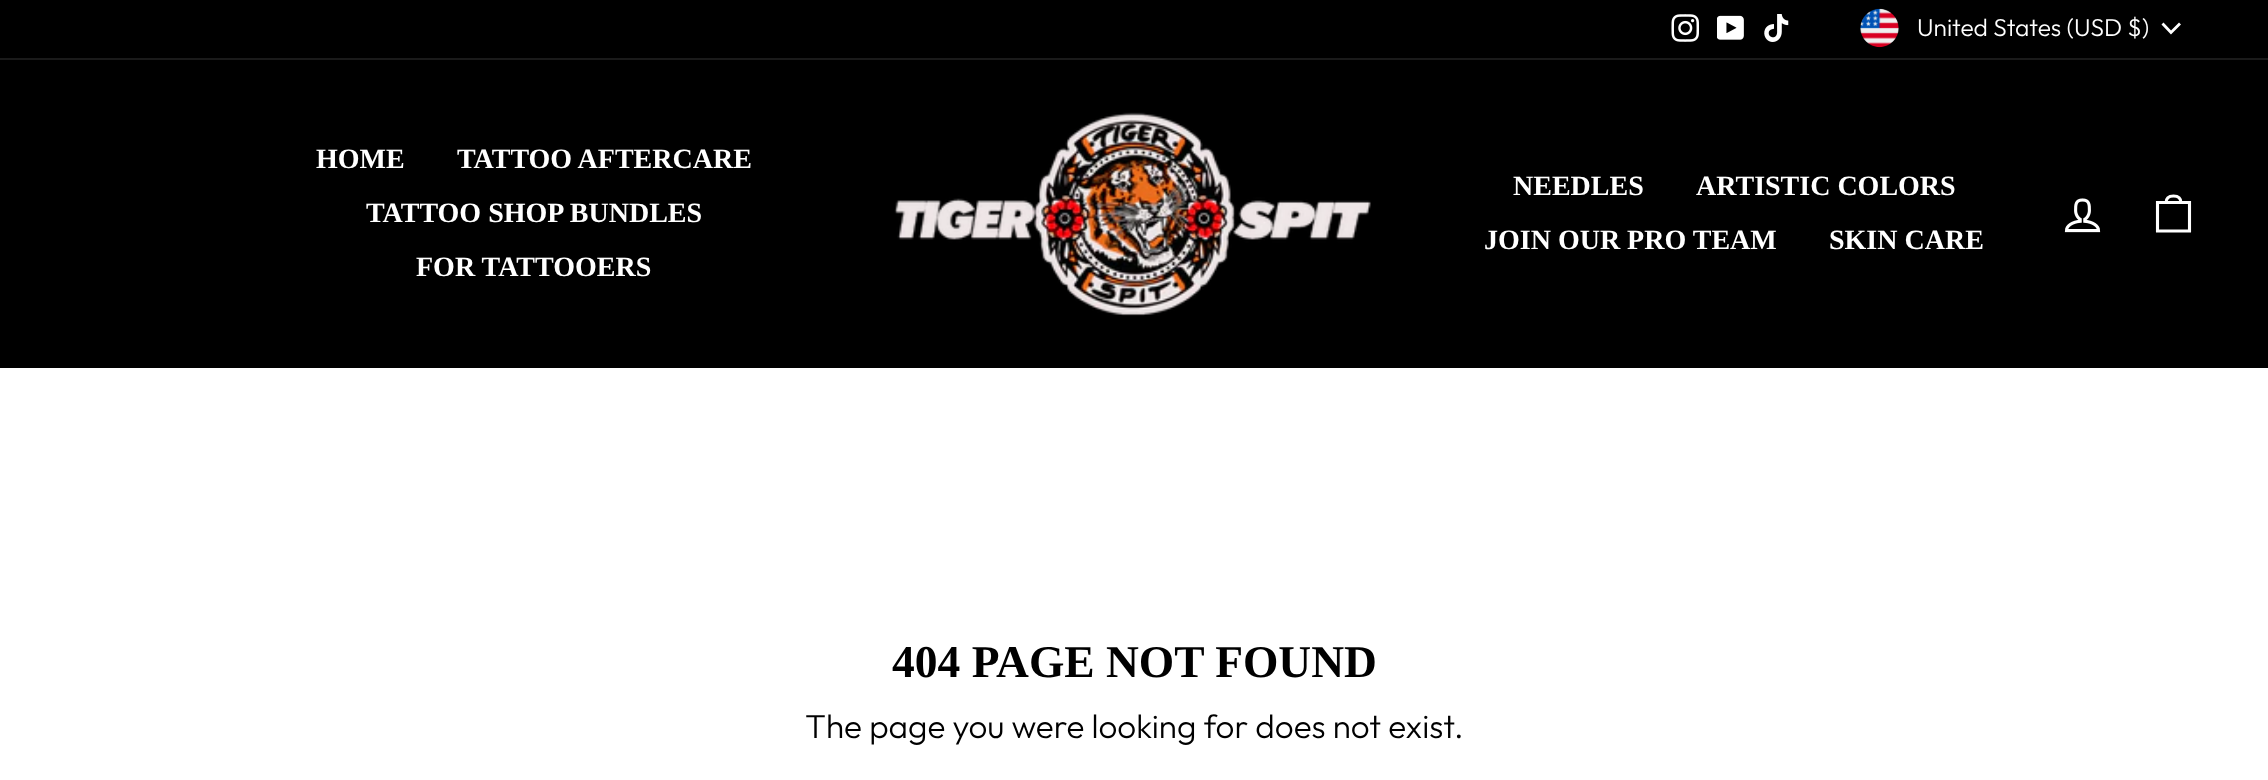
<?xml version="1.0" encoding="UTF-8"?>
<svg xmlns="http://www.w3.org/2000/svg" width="2268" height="780">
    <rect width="100%" height="100%" fill="#FFFFFF"/>
    <rect x="0" y="0" width="2268" height="58" fill="#000000"/>
    <image x="1671" y="14" width="28" height="28" href="img_01.png"/>
    <image x="1717" y="15" width="27" height="25" href="img_02.png"/>
    <image x="1764" y="14" width="25" height="28" href="img_03.png"/>
    <image x="1860" y="8" width="39" height="40" href="img_04.png"/>
    <text x="1917" y="36" font-family="Outfit" font-size="24.5" font-weight="300" fill="#FFFFFF">United States (USD $)</text>
    <path d="M 2162.5 23.5 L 2171 32.5 L 2180 23.5" fill="none" stroke="#FFFFFF" stroke-width="2.8"/>
    <rect x="0" y="60" width="2268" height="308" fill="#000000"/>
    <rect x="0" y="58" width="2268" height="2" fill="#1A1A1A"/>
    <text x="316" y="168" font-family="Liberation Serif" font-size="28" font-weight="700" fill="#FFFFFF">HOME</text>
    <text x="457" y="168" font-family="Liberation Serif" font-size="28" font-weight="700" fill="#FFFFFF">TATTOO AFTERCARE</text>
    <text x="366" y="222" font-family="Liberation Serif" font-size="28" font-weight="700" fill="#FFFFFF">TATTOO SHOP BUNDLES</text>
    <text x="416" y="276" font-family="Liberation Serif" font-size="28" font-weight="700" fill="#FFFFFF">FOR TATTOOERS</text>
    <image x="894" y="112" width="477" height="204" href="img_05.png"/>
    <text x="1513" y="195" font-family="Liberation Serif" font-size="28" font-weight="700" fill="#FFFFFF">NEEDLES</text>
    <text x="1696" y="195" font-family="Liberation Serif" font-size="28" font-weight="700" fill="#FFFFFF">ARTISTIC COLORS</text>
    <text x="1484" y="249" font-family="Liberation Serif" font-size="28" font-weight="700" fill="#FFFFFF">JOIN OUR PRO TEAM</text>
    <text x="1829" y="249" font-family="Liberation Serif" font-size="28" font-weight="700" fill="#FFFFFF">SKIN CARE</text>
    <image x="2064" y="198" width="37" height="35" href="img_06.png"/>
    <path d="M 2157.5 202.5 H 2189.5 V 231 H 2157.5 Z M 2166 203 C 2166 197.5 2169.5 196 2173.5 196 C 2177.5 196 2181 197.5 2181 203" fill="none" stroke="#FFFFFF" stroke-width="3.1"/>
    <text x="892" y="677" font-family="Liberation Serif" font-size="45.5" font-weight="700" fill="#000000">404 PAGE NOT FOUND</text>
    <text x="805" y="738" font-family="Outfit" font-size="33.25" font-weight="300" fill="#000000">The page you were looking for does not exist.</text>
</svg>
